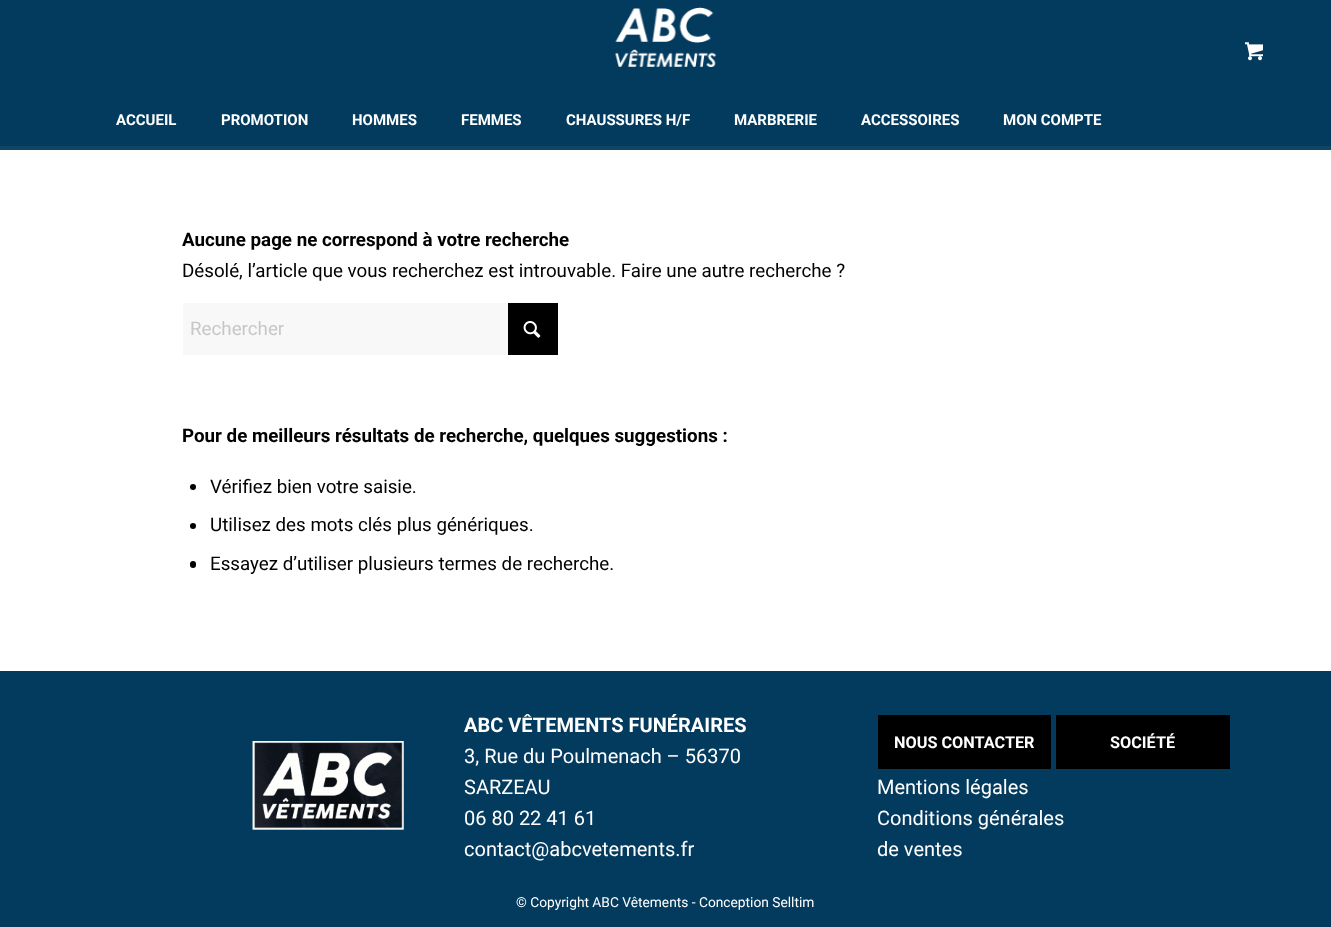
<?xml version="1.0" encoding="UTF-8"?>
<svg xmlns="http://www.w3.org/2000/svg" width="1331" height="927">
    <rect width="100%" height="100%" fill="#033B5E"/>
    <image x="615" y="7" width="102" height="60" href="img_01.png"/>
    <image x="1245" y="42" width="18" height="19" href="img_02.png"/>
    <text x="116" y="125" font-family="Roboto" font-size="15" font-weight="700" fill="#FFFFFF">ACCUEIL</text>
    <text x="221" y="125" font-family="Roboto" font-size="15" font-weight="700" fill="#FFFFFF">PROMOTION</text>
    <text x="352" y="125" font-family="Roboto" font-size="15" font-weight="700" fill="#FFFFFF">HOMMES</text>
    <text x="461" y="125" font-family="Roboto" font-size="15" font-weight="700" fill="#FFFFFF">FEMMES</text>
    <text x="566" y="125" font-family="Roboto" font-size="15" font-weight="700" fill="#FFFFFF">CHAUSSURES H/F</text>
    <text x="734" y="125" font-family="Roboto" font-size="15" font-weight="700" fill="#FFFFFF">MARBRERIE</text>
    <text x="861" y="125" font-family="Roboto" font-size="15" font-weight="700" fill="#FFFFFF">ACCESSOIRES</text>
    <text x="1003" y="125" font-family="Roboto" font-size="15" font-weight="700" fill="#FFFFFF">MON COMPTE</text>
    <rect x="0" y="150" width="1331" height="521" fill="#FFFFFF"/>
    <rect x="0" y="146" width="1331" height="4" fill="#104566"/>
    <text x="182" y="246" font-family="Roboto" font-size="18.75" font-weight="700" fill="#000000">Aucune page ne correspond à votre recherche</text>
    <text x="182" y="277" font-family="Roboto" font-size="18.75" fill="#000000">Désolé, l’article que vous recherchez est introuvable. Faire une autre recherche ?</text>
    <rect x="183" y="303" width="325" height="52" fill="#F8F8F8"/>
    <text x="190" y="335" font-family="Roboto" font-size="18.75" fill="#C7C7C7">Rechercher</text>
    <rect x="508" y="303" width="50" height="52" fill="#000000"/>
    <image x="523" y="321" width="18" height="17" href="img_03.png"/>
    <text x="182" y="442" font-family="Roboto" font-size="18.75" font-weight="700" fill="#000000">Pour de meilleurs résultats de recherche, quelques suggestions :</text>
    <circle cx="193" cy="487" r="3" fill="#000000"/>
    <text x="210" y="493" font-family="Roboto" font-size="18.75" fill="#000000">Vérifiez bien votre saisie.</text>
    <circle cx="193" cy="526" r="3" fill="#000000"/>
    <text x="210" y="531" font-family="Roboto" font-size="18.75" fill="#000000">Utilisez des mots clés plus génériques.</text>
    <rect x="190" y="561" width="6" height="7" rx="3" fill="#000000"/>
    <text x="210" y="570" font-family="Roboto" font-size="18.75" fill="#000000">Essayez d’utiliser plusieurs termes de recherche.</text>
    <image x="252" y="741" width="152" height="89" href="img_04.png"/>
    <text x="464" y="732" font-family="Roboto" font-size="20" font-weight="700" fill="#FFFFFF">ABC VÊTEMENTS FUNÉRAIRES</text>
    <text font-family="Roboto" font-size="20" fill="#FFFFFF">
        <tspan x="464" y="763">3, Rue du Poulmenach – 56370</tspan>
        <tspan x="464" y="794">SARZEAU</tspan>
        <tspan x="464" y="825">06 80 22 41 61</tspan>
        <tspan x="464" y="856">contact@abcvetements.fr</tspan>
    </text>
    <rect x="878" y="715" width="173" height="54" fill="#000000"/>
    <text x="894" y="748" font-family="Roboto" font-size="16.25" font-weight="700" fill="#FFFFFF">NOUS CONTACTER</text>
    <rect x="1056" y="715" width="174" height="54" fill="#000000"/>
    <text x="1110" y="748" font-family="Roboto" font-size="16.25" font-weight="700" fill="#FFFFFF">SOCIÉTÉ</text>
    <text font-family="Roboto" font-size="20" fill="#FFFFFF">
        <tspan x="877" y="794">Mentions légales</tspan>
        <tspan x="877" y="825">Conditions générales</tspan>
        <tspan x="877" y="856">de ventes</tspan>
    </text>
    <text x="516" y="907" font-family="Roboto" font-size="13.75" fill="#FFFFFF">© Copyright ABC Vêtements - Conception Selltim</text>
</svg>
